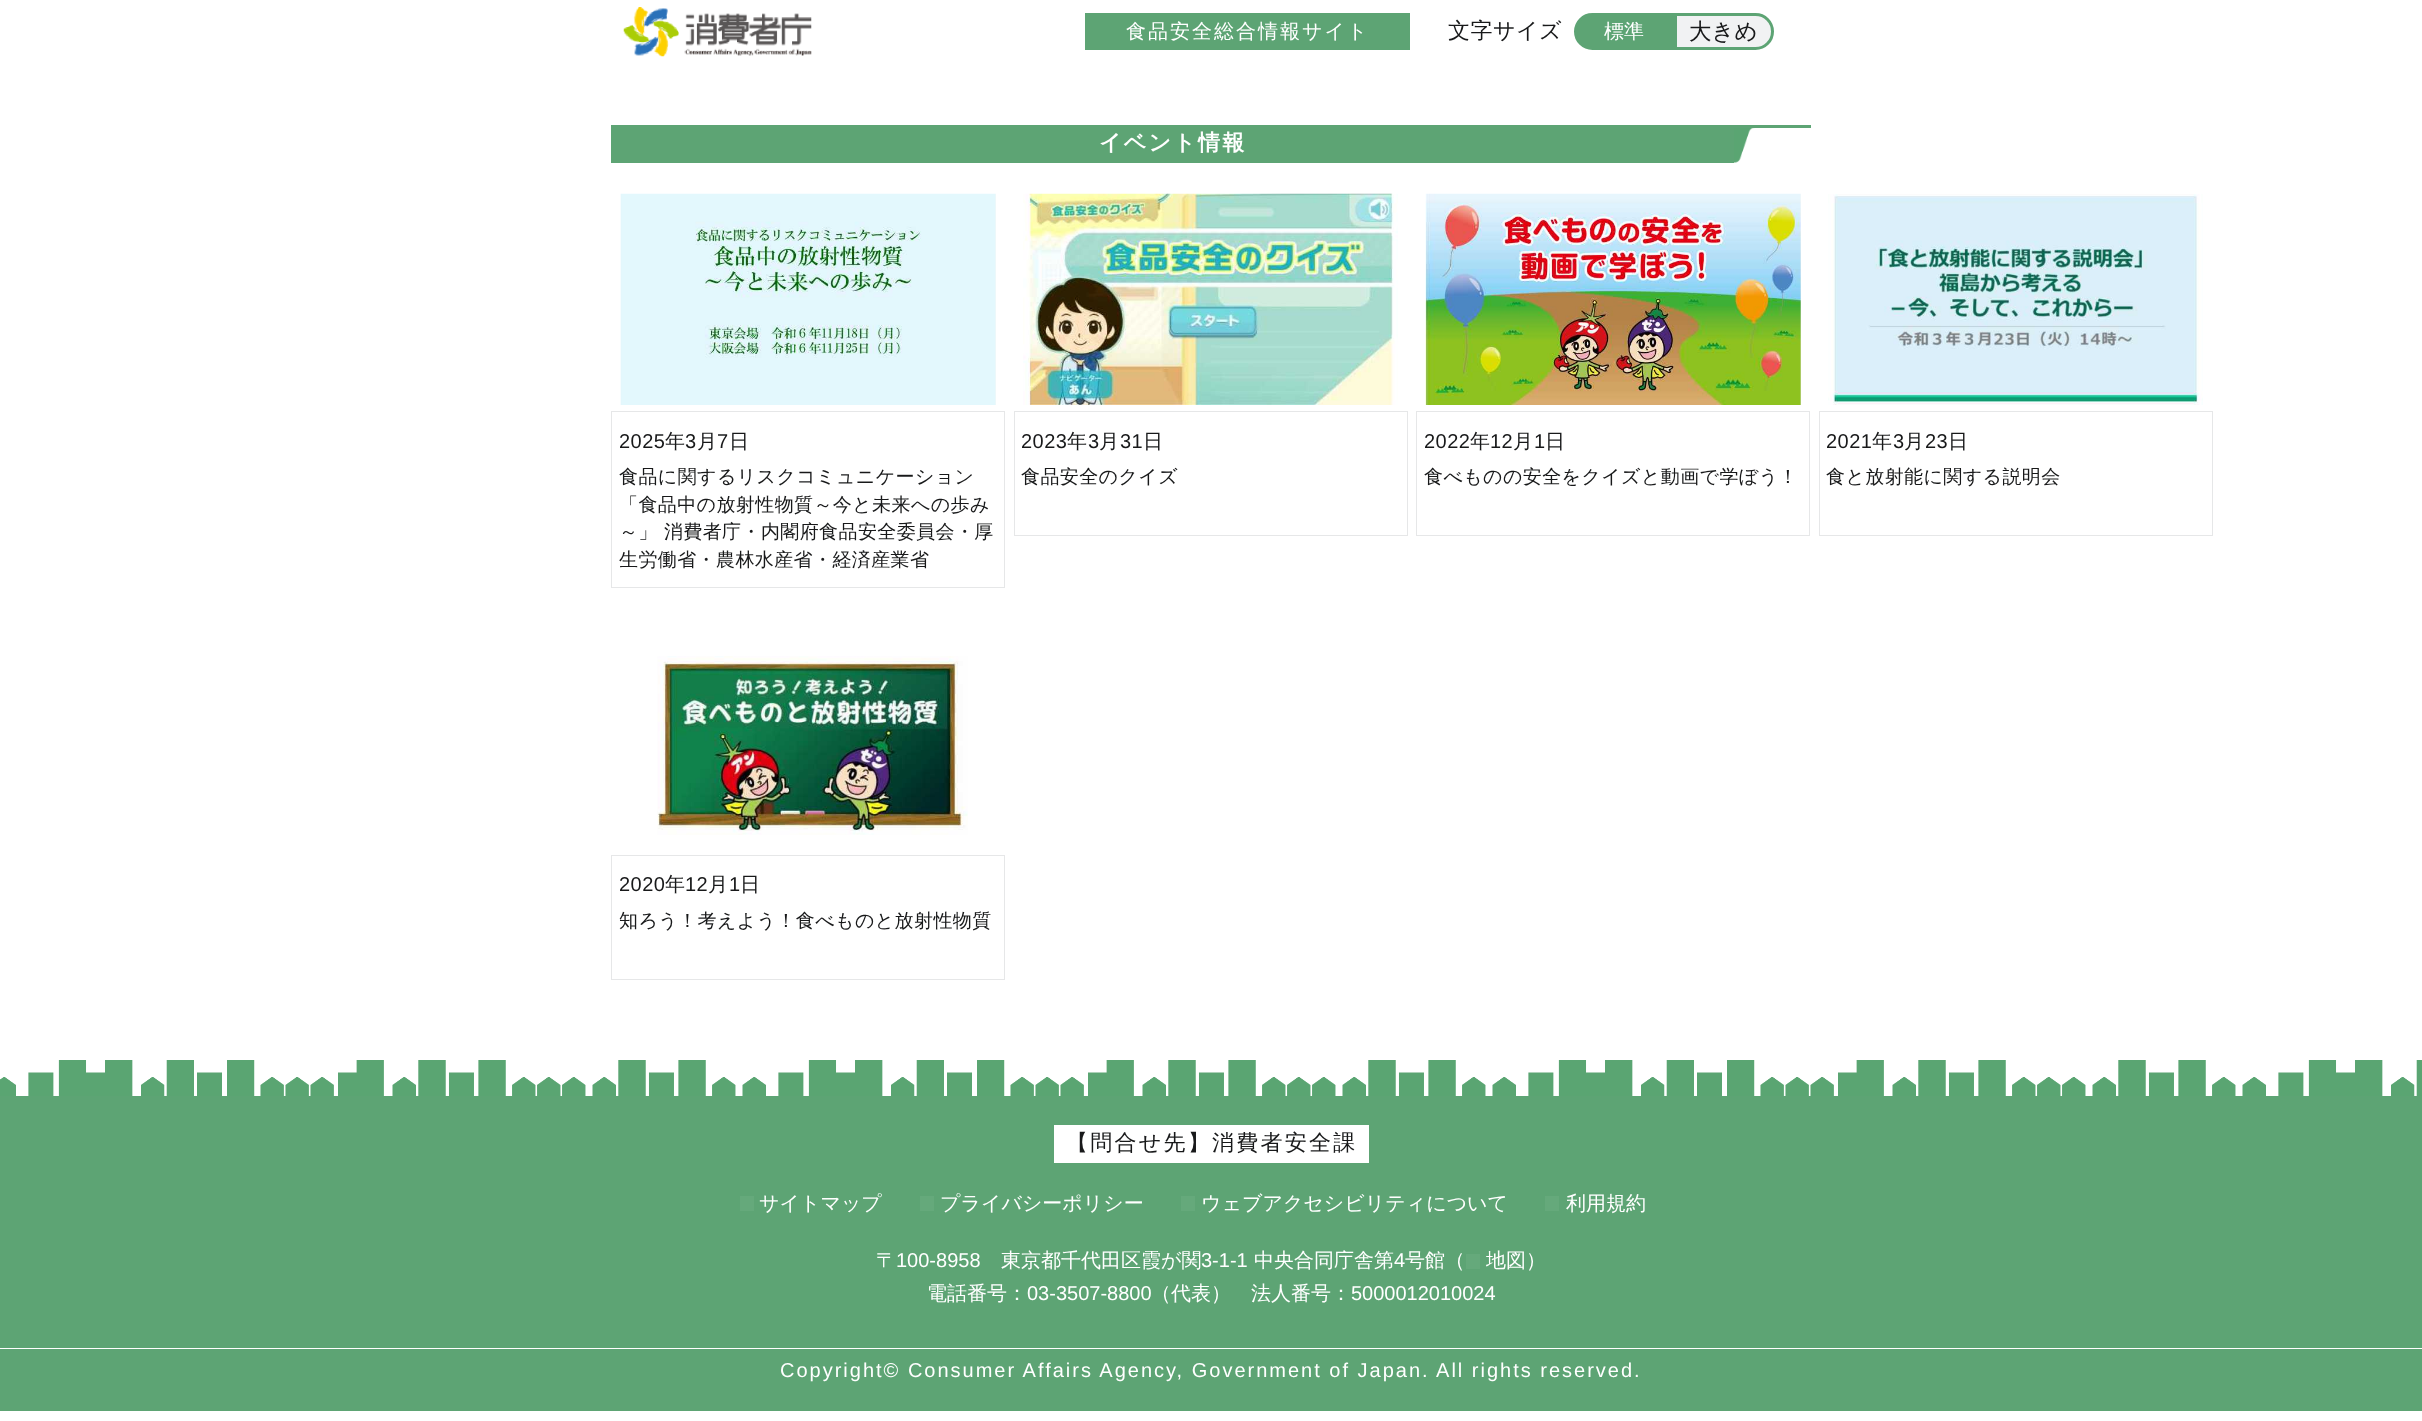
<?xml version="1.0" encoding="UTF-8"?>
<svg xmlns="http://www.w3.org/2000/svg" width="2422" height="1421">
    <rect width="100%" height="100%" fill="#FFFFFF"/>
    <image x="623" y="6" width="189" height="51" href="img_01.png"/>
    <rect x="1085" y="13" width="325" height="37" fill="#5DA474"/>
    <text x="1126" y="38" font-family="WenQuanYi Zen Hei" font-size="20" font-weight="500" letter-spacing="2" fill="#FFFFFF">食品安全総合情報サイト</text>
    <text x="1448" y="38" font-family="WenQuanYi Zen Hei" font-size="22" font-weight="500" letter-spacing="0.5" fill="#18191A">文字サイズ</text>
    <path d="M 1592.5 14.5 H 1672.5 V 48.5 H 1592.5 C 1583 48.5 1575.5 41 1575.5 31.5 C 1575.5 22 1583 14.5 1592.5 14.5 Z" fill="#5DA474" stroke="#5DA474" stroke-width="3"/>
    <text x="1604" y="38" font-family="WenQuanYi Zen Hei" font-size="20" font-weight="500" fill="#FFFFFF">標準</text>
    <path d="M 1675.5 14.5 H 1755.5 C 1765 14.5 1772.5 22 1772.5 31.5 C 1772.5 41 1765 48.5 1755.5 48.5 H 1675.5 Z" fill="#F1F2F3" stroke="#5DA474" stroke-width="3"/>
    <text x="1689" y="39" font-family="WenQuanYi Zen Hei" font-size="22.5" font-weight="500" fill="#18191A">大きめ</text>
    <rect x="1734" y="125" width="77" height="3" fill="#5DA474"/>
    <rect x="611" y="125" width="1123" height="38" fill="#5DA474"/>
    <text x="1099" y="150" font-family="WenQuanYi Zen Hei" font-size="22" font-weight="700" letter-spacing="2.25" fill="#FFFFFF">イベント情報</text>
    <image x="1734" y="128" width="21" height="35" href="img_02.png"/>
    <image x="620" y="193" width="376" height="212" href="img_03.png"/>
    <rect x="611.5" y="411.5" width="393" height="176" fill="none" stroke="#E6E7E8"/>
    <text x="619" y="448" font-family="Liberation Sans" font-size="20" letter-spacing="0.5" fill="#18191A">2025</text>
    <text x="665" y="448" font-family="WenQuanYi Zen Hei" font-size="20" font-weight="500" letter-spacing="0.5" fill="#18191A">年</text>
    <text x="685" y="448" font-family="Liberation Sans" font-size="20" letter-spacing="0.5" fill="#18191A">3</text>
    <text x="697" y="448" font-family="WenQuanYi Zen Hei" font-size="20" font-weight="500" letter-spacing="0.5" fill="#18191A">月</text>
    <text x="717" y="448" font-family="Liberation Sans" font-size="20" letter-spacing="0.5" fill="#18191A">7</text>
    <text x="729" y="448" font-family="WenQuanYi Zen Hei" font-size="20" font-weight="500" letter-spacing="0.5" fill="#18191A">日</text>
    <text font-family="WenQuanYi Zen Hei" font-size="19" font-weight="500" letter-spacing="0.4" fill="#18191A">
        <tspan x="619" y="483">食品に関するリスクコミュニケーション</tspan>
        <tspan x="619" y="511">「食品中の放射性物質～今と未来への歩み</tspan>
        <tspan x="619" y="538">～」 消費者庁・内閣府食品安全委員会・厚</tspan>
        <tspan x="619" y="566">生労働省・農林水産省・経済産業省</tspan>
    </text>
    <image x="1023" y="193" width="375" height="212" href="img_04.png"/>
    <rect x="1014.5" y="411.5" width="393" height="124" fill="none" stroke="#E6E7E8"/>
    <text x="1021" y="448" font-family="Liberation Sans" font-size="20" letter-spacing="0.5" fill="#18191A">2023</text>
    <text x="1067" y="448" font-family="WenQuanYi Zen Hei" font-size="20" font-weight="500" letter-spacing="0.5" fill="#18191A">年</text>
    <text x="1088" y="448" font-family="Liberation Sans" font-size="20" letter-spacing="0.5" fill="#18191A">3</text>
    <text x="1099" y="448" font-family="WenQuanYi Zen Hei" font-size="20" font-weight="500" letter-spacing="0.5" fill="#18191A">月</text>
    <text x="1120" y="448" font-family="Liberation Sans" font-size="20" letter-spacing="0.5" fill="#18191A">31</text>
    <text x="1143" y="448" font-family="WenQuanYi Zen Hei" font-size="20" font-weight="500" letter-spacing="0.5" fill="#18191A">日</text>
    <text x="1021" y="483" font-family="WenQuanYi Zen Hei" font-size="19" font-weight="500" letter-spacing="0.4" fill="#18191A">食品安全のクイズ</text>
    <image x="1425" y="193" width="376" height="212" href="img_05.png"/>
    <rect x="1416.5" y="411.5" width="393" height="124" fill="none" stroke="#E6E7E8"/>
    <text x="1424" y="448" font-family="Liberation Sans" font-size="20" letter-spacing="0.5" fill="#18191A">2022</text>
    <text x="1470" y="448" font-family="WenQuanYi Zen Hei" font-size="20" font-weight="500" letter-spacing="0.5" fill="#18191A">年</text>
    <text x="1490" y="448" font-family="Liberation Sans" font-size="20" letter-spacing="0.5" fill="#18191A">12</text>
    <text x="1513" y="448" font-family="WenQuanYi Zen Hei" font-size="20" font-weight="500" letter-spacing="0.5" fill="#18191A">月</text>
    <text x="1534" y="448" font-family="Liberation Sans" font-size="20" letter-spacing="0.5" fill="#18191A">1</text>
    <text x="1545" y="448" font-family="WenQuanYi Zen Hei" font-size="20" font-weight="500" letter-spacing="0.5" fill="#18191A">日</text>
    <text x="1424" y="483" font-family="WenQuanYi Zen Hei" font-size="19" font-weight="500" letter-spacing="0.4" fill="#18191A">食べものの安全をクイズと動画で学ぼう！</text>
    <image x="1828" y="194" width="375" height="211" href="img_06.png"/>
    <rect x="1819.5" y="411.5" width="393" height="124" fill="none" stroke="#E6E7E8"/>
    <text x="1826" y="448" font-family="Liberation Sans" font-size="20" letter-spacing="0.5" fill="#18191A">2021</text>
    <text x="1872" y="448" font-family="WenQuanYi Zen Hei" font-size="20" font-weight="500" letter-spacing="0.5" fill="#18191A">年</text>
    <text x="1893" y="448" font-family="Liberation Sans" font-size="20" letter-spacing="0.5" fill="#18191A">3</text>
    <text x="1904" y="448" font-family="WenQuanYi Zen Hei" font-size="20" font-weight="500" letter-spacing="0.5" fill="#18191A">月</text>
    <text x="1925" y="448" font-family="Liberation Sans" font-size="20" letter-spacing="0.5" fill="#18191A">23</text>
    <text x="1948" y="448" font-family="WenQuanYi Zen Hei" font-size="20" font-weight="500" letter-spacing="0.5" fill="#18191A">日</text>
    <text x="1826" y="483" font-family="WenQuanYi Zen Hei" font-size="19" font-weight="500" letter-spacing="0.4" fill="#18191A">食と放射能に関する説明会</text>
    <image x="657" y="656" width="311" height="179" href="img_07.png"/>
    <rect x="611.5" y="855.5" width="393" height="124" fill="none" stroke="#E6E7E8"/>
    <text x="619" y="891" font-family="Liberation Sans" font-size="20" letter-spacing="0.5" fill="#18191A">2020</text>
    <text x="665" y="891" font-family="WenQuanYi Zen Hei" font-size="20" font-weight="500" letter-spacing="0.5" fill="#18191A">年</text>
    <text x="685" y="891" font-family="Liberation Sans" font-size="20" letter-spacing="0.5" fill="#18191A">12</text>
    <text x="708" y="891" font-family="WenQuanYi Zen Hei" font-size="20" font-weight="500" letter-spacing="0.5" fill="#18191A">月</text>
    <text x="729" y="891" font-family="Liberation Sans" font-size="20" letter-spacing="0.5" fill="#18191A">1</text>
    <text x="740" y="891" font-family="WenQuanYi Zen Hei" font-size="20" font-weight="500" letter-spacing="0.5" fill="#18191A">日</text>
    <text x="619" y="927" font-family="WenQuanYi Zen Hei" font-size="19" font-weight="500" letter-spacing="0.4" fill="#18191A">知ろう！考えよう！食べものと放射性物質</text>
    <image x="0" y="1060" width="2422" height="36" href="img_08.png"/>
    <rect x="0" y="1096" width="2422" height="252" fill="#5DA474"/>
    <rect x="1054" y="1125" width="315" height="38" fill="#FFFFFF"/>
    <text x="1066" y="1150" font-family="WenQuanYi Zen Hei" font-size="22" font-weight="500" letter-spacing="2.25" fill="#18191A">【問合せ先】消費者安全課</text>
    <rect x="740" y="1196" width="14" height="15" fill="#65A97B"/>
    <text x="759" y="1210" font-family="WenQuanYi Zen Hei" font-size="20" font-weight="500" fill="#FFFFFF">サイトマップ</text>
    <rect x="920" y="1196" width="14" height="15" fill="#65A97B"/>
    <text x="940" y="1210" font-family="WenQuanYi Zen Hei" font-size="20" font-weight="500" fill="#FFFFFF">プライバシーポリシー</text>
    <rect x="1181" y="1196" width="14" height="15" fill="#65A97B"/>
    <text x="1201" y="1210" font-family="WenQuanYi Zen Hei" font-size="20" font-weight="500" fill="#FFFFFF">ウェブアクセシビリティについて</text>
    <rect x="1545" y="1196" width="14" height="15" fill="#65A97B"/>
    <text x="1566" y="1210" font-family="WenQuanYi Zen Hei" font-size="20" font-weight="500" fill="#FFFFFF">利用規約</text>
    <text x="876" y="1267" font-family="WenQuanYi Zen Hei" font-size="20" font-weight="500" fill="#FFFFFF">〒</text>
    <text x="896" y="1267" font-family="Liberation Sans" font-size="20" fill="#FFFFFF">100-8958</text>
    <text x="1001" y="1267" font-family="WenQuanYi Zen Hei" font-size="20" font-weight="500" fill="#FFFFFF">東京都千代田区霞が関</text>
    <text x="1201" y="1267" font-family="Liberation Sans" font-size="20" fill="#FFFFFF">3-1-1</text>
    <text x="1254" y="1267" font-family="WenQuanYi Zen Hei" font-size="20" font-weight="500" fill="#FFFFFF">中央合同庁舎第</text>
    <text x="1394" y="1267" font-family="Liberation Sans" font-size="20" fill="#FFFFFF">4</text>
    <text x="1405" y="1267" font-family="WenQuanYi Zen Hei" font-size="20" font-weight="500" fill="#FFFFFF">号館（</text>
    <rect x="1466" y="1254" width="14" height="15" fill="#65A97B"/>
    <text x="1486" y="1267" font-family="WenQuanYi Zen Hei" font-size="20" font-weight="500" fill="#FFFFFF">地図）</text>
    <text x="927" y="1300" font-family="WenQuanYi Zen Hei" font-size="20" font-weight="500" fill="#FFFFFF">電話番号：</text>
    <text x="1027" y="1300" font-family="Liberation Sans" font-size="20" fill="#FFFFFF">03-3507-8800</text>
    <text x="1151" y="1300" font-family="WenQuanYi Zen Hei" font-size="20" font-weight="500" fill="#FFFFFF">（代表）</text>
    <text x="1251" y="1300" font-family="WenQuanYi Zen Hei" font-size="20" font-weight="500" fill="#FFFFFF">法人番号：</text>
    <text x="1351" y="1300" font-family="Liberation Sans" font-size="20" fill="#FFFFFF">5000012010024</text>
    <rect x="0" y="1349" width="2422" height="62" fill="#5DA474"/>
    <text x="780" y="1377" font-family="Liberation Sans" font-size="20" letter-spacing="2" fill="#FFFFFF">Copyright© Consumer Affairs Agency, Government of Japan. All rights reserved.</text>
</svg>
